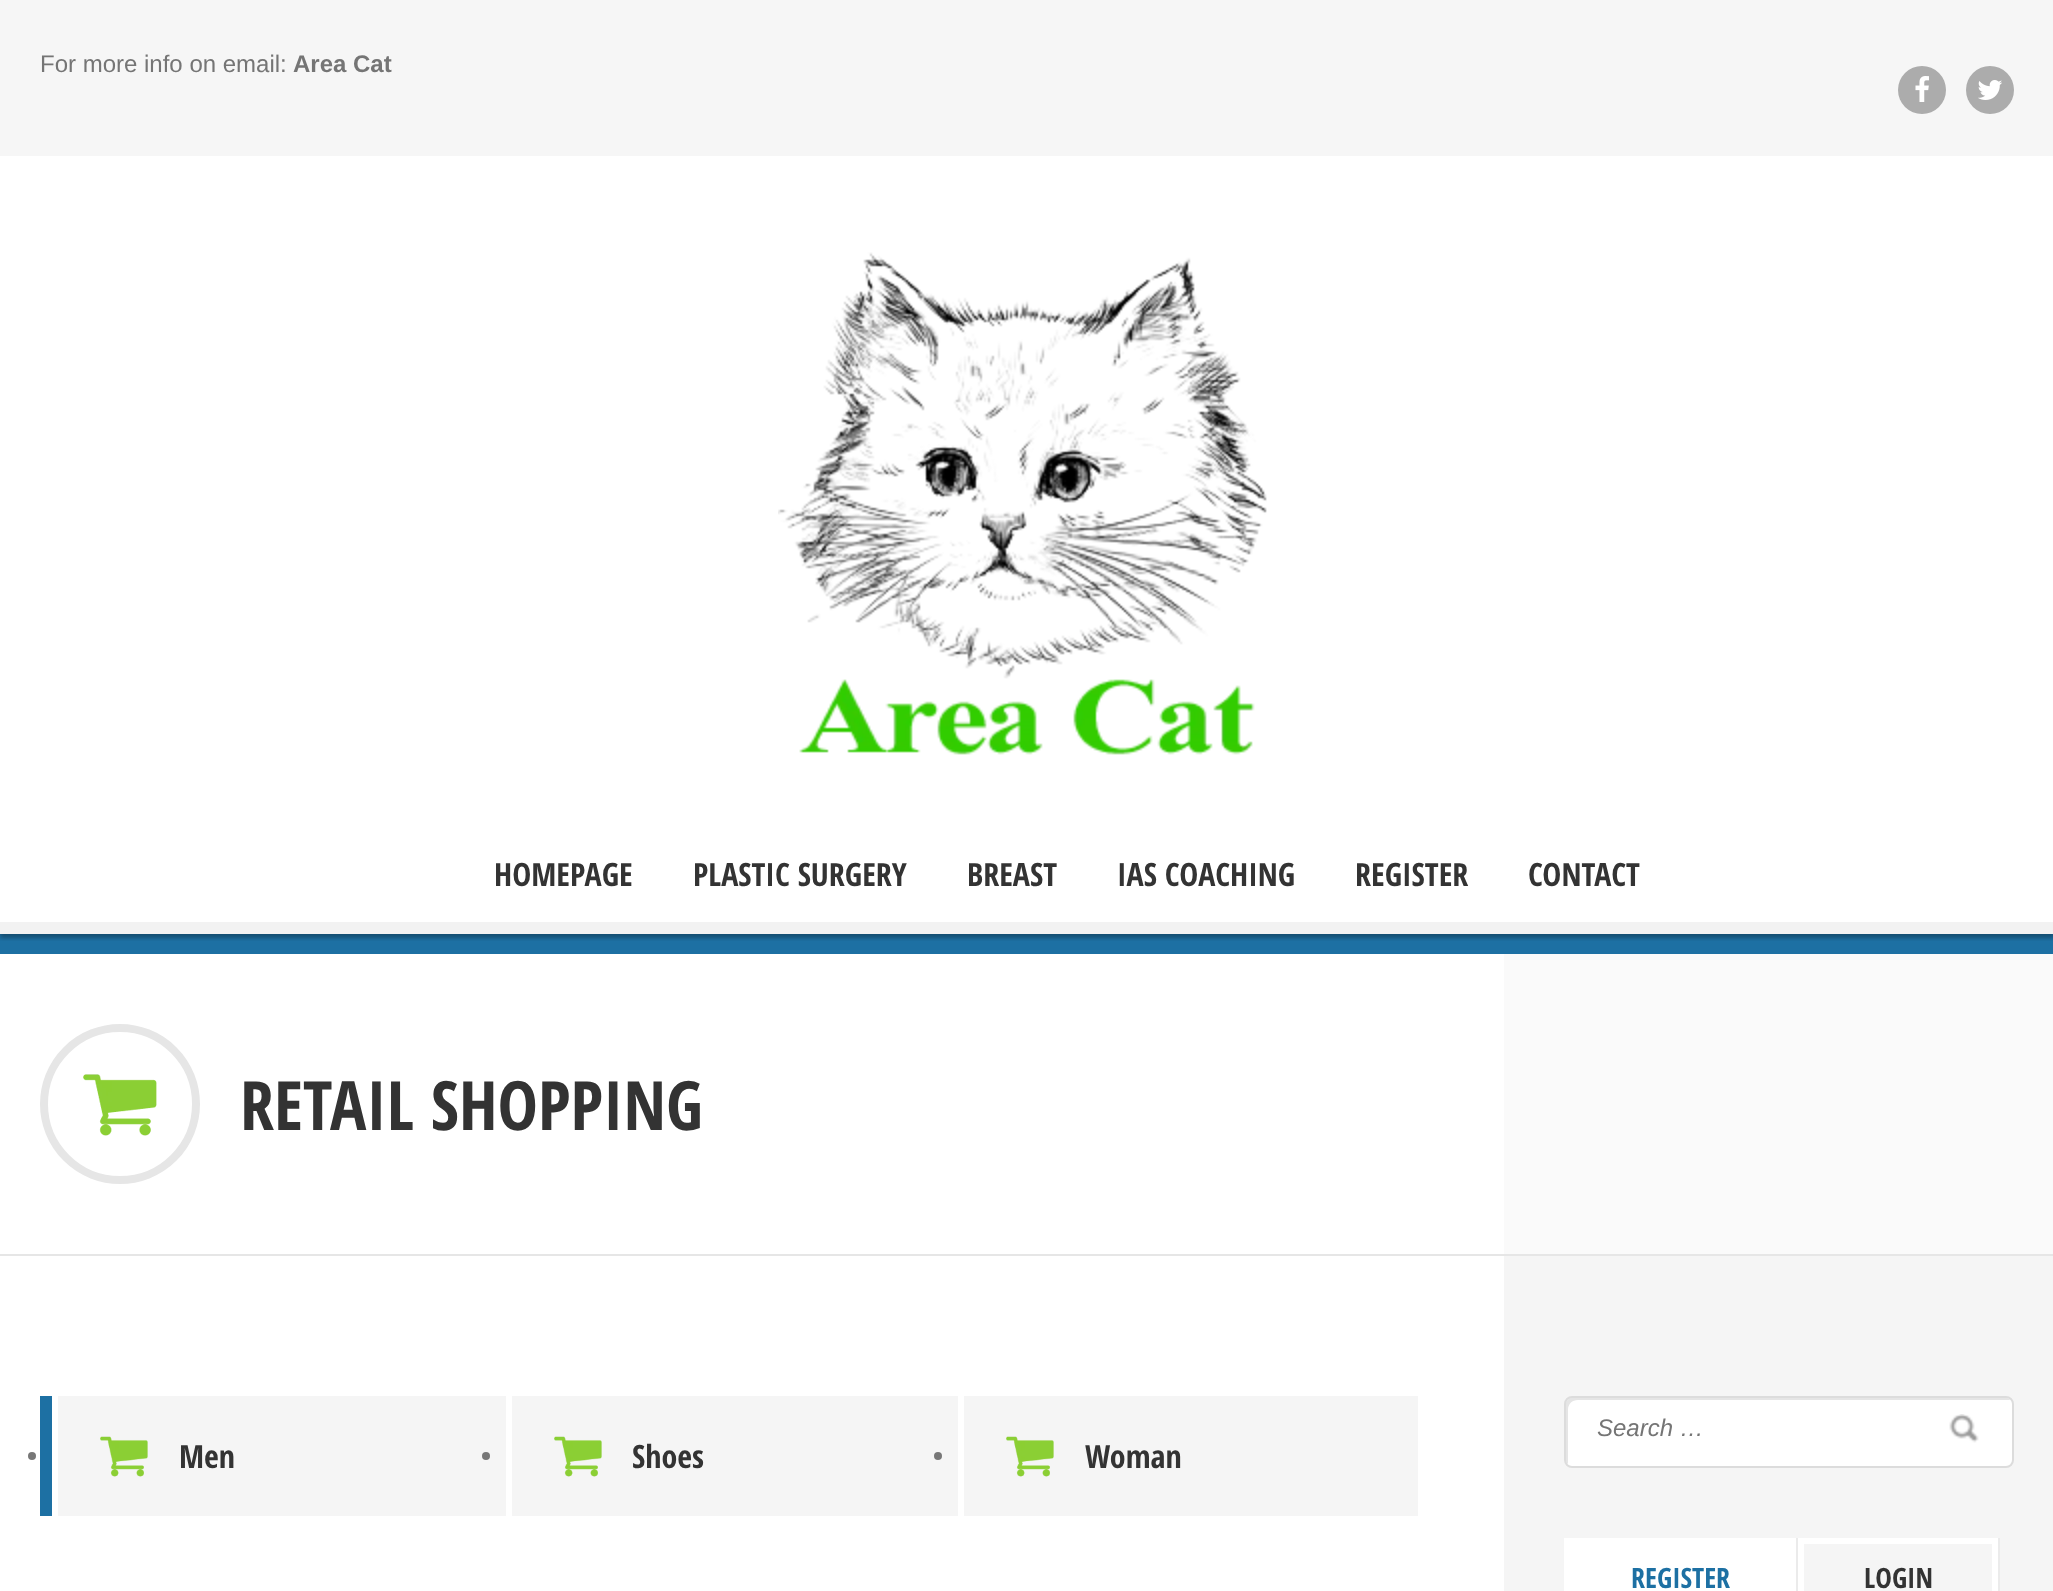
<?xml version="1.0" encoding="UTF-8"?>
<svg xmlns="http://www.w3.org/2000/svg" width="2053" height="1591">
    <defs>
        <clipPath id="clip1"><rect x="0" y="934" width="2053" height="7"/></clipPath>
        <filter id="blur1" x="-50%" y="-200%" width="200%" height="500%"><feGaussianBlur stdDeviation="2"/></filter>
    </defs>
    <rect width="100%" height="100%" fill="#FFFFFF"/>
    <rect x="0" y="934" width="2053" height="20" fill="#1D70A3"/>
    <g clip-path="url(#clip1)">
        <rect x="0" y="4" width="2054" height="934" fill="#000000" fill-opacity="0.3" filter="url(#blur1)"/>
    </g>
    <rect x="0" y="922" width="2053" height="12" fill="#F2F2F2"/>
    <rect x="0" y="0" width="2053" height="156" fill="#F6F6F6"/>
    <text x="40" y="72" font-family="Liberation Sans" font-size="24" fill="#757575">For more info on email:</text>
    <text x="293" y="72" font-family="Liberation Sans" font-size="24" font-weight="700" fill="#757575">Area Cat</text>
    <circle cx="1922" cy="90" r="24" fill="#ACACAC"/>
    <image x="1915" y="76" width="14" height="26" href="img_01.png"/>
    <circle cx="1990" cy="90" r="24" fill="#ACACAC"/>
    <image x="1978" y="80" width="24" height="20" href="img_02.png"/>
    <image x="778" y="252" width="489" height="503" href="img_03.png"/>
    <text x="494" y="886" font-family="Open Sans Condensed" font-size="32" font-weight="700" fill="#333333">HOMEPAGE</text>
    <text x="693" y="886" font-family="Open Sans Condensed" font-size="32" font-weight="700" fill="#333333">PLASTIC SURGERY</text>
    <text x="967" y="886" font-family="Open Sans Condensed" font-size="32" font-weight="700" fill="#333333">BREAST</text>
    <text x="1117" y="886" font-family="Open Sans Condensed" font-size="32" font-weight="700" fill="#333333">IAS COACHING</text>
    <text x="1355" y="886" font-family="Open Sans Condensed" font-size="32" font-weight="700" fill="#333333">REGISTER</text>
    <text x="1528" y="886" font-family="Open Sans Condensed" font-size="32" font-weight="700" fill="#333333">CONTACT</text>
    <rect x="0" y="1254" width="2053" height="2" fill="#E6E6E6"/>
    <circle cx="120" cy="1104" r="76" fill="none" stroke="#E6E6E6" stroke-width="8"/>
    <image x="83" y="1074" width="74" height="62" href="img_04.png"/>
    <text x="240" y="1130" font-family="Open Sans Condensed" font-size="68" font-weight="700" fill="#333333">RETAIL SHOPPING</text>
    <rect x="1504" y="954" width="549" height="300" fill="#FAFAFA"/>
    <rect x="1504" y="1256" width="549" height="335" fill="#F5F5F5"/>
    <rect x="40" y="1396" width="12" height="120" fill="#1D70A3"/>
    <rect x="58" y="1396" width="448" height="120" fill="#F5F5F5"/>
    <circle cx="32" cy="1456" r="4" fill="#777777"/>
    <image x="100" y="1436" width="48" height="41" href="img_05.png"/>
    <text x="179" y="1468" font-family="Open Sans Condensed" font-size="32" font-weight="700" fill="#333333">Men</text>
    <rect x="512" y="1396" width="446" height="120" fill="#F5F5F5"/>
    <circle cx="486" cy="1456" r="4" fill="#777777"/>
    <image x="554" y="1436" width="48" height="41" href="img_05.png"/>
    <text x="632" y="1468" font-family="Open Sans Condensed" font-size="32" font-weight="700" fill="#333333">Shoes</text>
    <rect x="964" y="1396" width="454" height="120" fill="#F5F5F5"/>
    <circle cx="938" cy="1456" r="4" fill="#777777"/>
    <image x="1006" y="1436" width="48" height="41" href="img_06.png"/>
    <text x="1085" y="1468" font-family="Open Sans Condensed" font-size="32" font-weight="700" fill="#333333">Woman</text>
    <rect x="1566" y="1398" width="446" height="68" rx="6" fill="#FFFFFF"/>
    <path d="M 1578 1400 H 2010 C 2009 1399 2008 1398 2006 1398 H 1572 C 1569 1398 1566 1401 1566 1404 V 1460 C 1566 1462 1567 1463 1568 1464 V 1410 C 1568 1404 1572 1400 1578 1400 Z" fill="#E5E5E5"/>
    <rect x="1565" y="1397" width="448" height="70" rx="7" fill="none" stroke="#000000" stroke-opacity="0.1" stroke-width="2"/>
    <text x="1597" y="1436" font-family="Liberation Sans" font-size="24" font-style="italic" fill="#757575">Search …</text>
    <image x="1949" y="1414" width="30" height="29" href="img_07.png"/>
    <rect x="1796" y="1538" width="2" height="53" fill="#EBEBEB"/>
    <rect x="1564" y="1538" width="232" height="53" fill="#FFFFFF"/>
    <text x="1631" y="1588" font-family="Open Sans Condensed" font-size="28" font-weight="700" fill="#1D70A3">REGISTER</text>
    <rect x="1998" y="1538" width="2" height="53" fill="#EBEBEB"/>
    <rect x="1798" y="1538" width="200" height="6" fill="#FFFFFF"/>
    <rect x="1992" y="1538" width="6" height="53" fill="#FFFFFF"/>
    <rect x="1798" y="1538" width="6" height="53" fill="#FFFFFF"/>
    <text x="1864" y="1588" font-family="Open Sans Condensed" font-size="28" font-weight="700" fill="#333333">LOGIN</text>
</svg>
